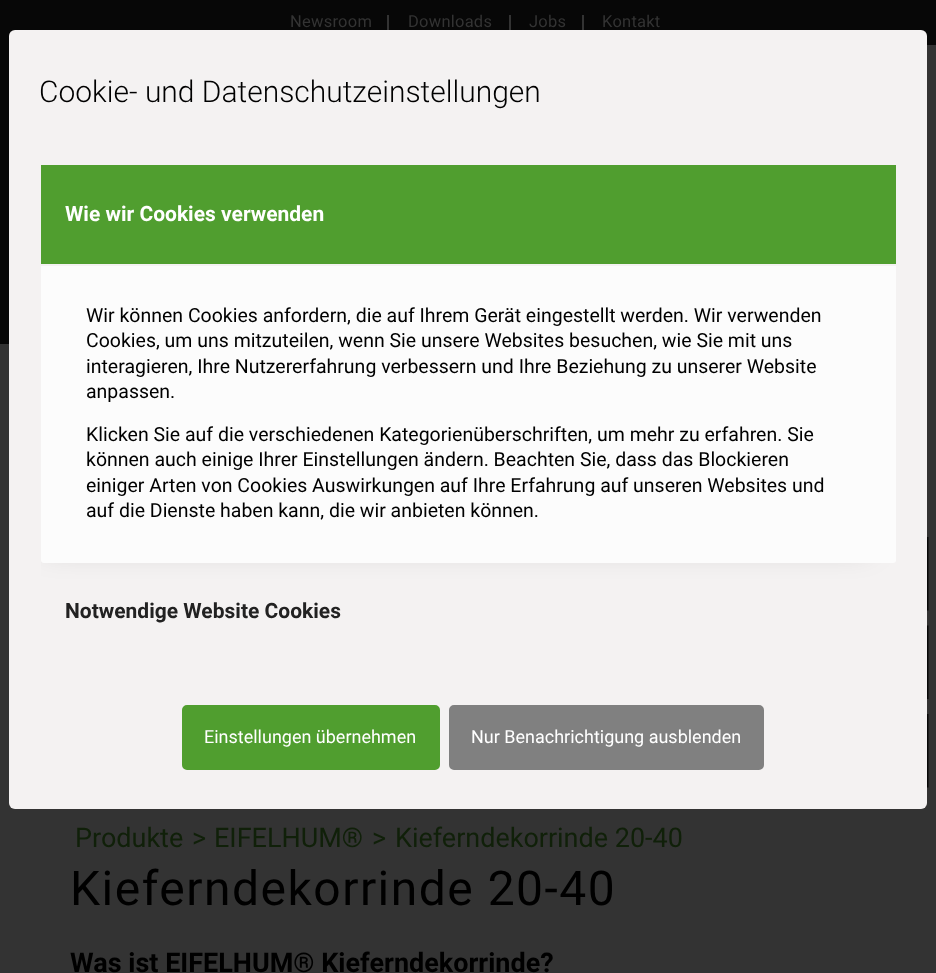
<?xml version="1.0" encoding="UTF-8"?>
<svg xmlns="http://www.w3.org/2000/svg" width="936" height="973">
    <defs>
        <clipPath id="clip1"><rect x="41" y="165" width="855" height="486"/></clipPath>
        <filter id="blur1" x="-50%" y="-200%" width="200%" height="500%"><feGaussianBlur stdDeviation="15"/></filter>
    </defs>
    <rect width="100%" height="100%" fill="#333333"/>
    <rect x="0" y="45" width="9" height="299" fill="#000000" fill-opacity="0.85"/>
    <rect x="0" y="0" width="936" height="45" fill="#070707"/>
    <rect x="387" y="15" width="2" height="15" fill="#333333"/>
    <text x="290" y="27" font-family="Roboto" font-size="16.5" letter-spacing="0.25" fill="#333333">Newsroom</text>
    <rect x="509" y="15" width="2" height="15" fill="#333333"/>
    <text x="408" y="27" font-family="Roboto" font-size="16.5" letter-spacing="0.25" fill="#333333">Downloads</text>
    <rect x="582" y="15" width="2" height="15" fill="#333333"/>
    <text x="529" y="27" font-family="Roboto" font-size="16.5" letter-spacing="0.25" fill="#333333">Jobs</text>
    <text x="602" y="27" font-family="Roboto" font-size="16.5" letter-spacing="0.25" fill="#333333">Kontakt</text>
    <text x="75" y="847" font-family="Roboto" font-size="27" fill="#102009">Produkte</text>
    <text x="192" y="847" font-family="Roboto" font-size="27" fill="#102009">&gt;</text>
    <text x="214" y="847" font-family="Roboto" font-size="27" fill="#102009">EIFELHUM®</text>
    <text x="372" y="847" font-family="Roboto" font-size="27" fill="#102009">&gt;</text>
    <text x="395" y="847" font-family="Roboto" font-size="27" fill="#102009">Kieferndekorrinde 20-40</text>
    <text x="70" y="905" font-family="Roboto" font-size="48" letter-spacing="1.5" fill="#000000">Kieferndekorrinde 20-40</text>
    <text x="70" y="972" font-family="Roboto" font-size="27" font-weight="700" fill="#000000">Was ist EIFELHUM® Kieferndekorrinde?</text>
    <rect x="9" y="30" width="918" height="779" rx="6" fill="#F4F2F2"/>
    <text x="39" y="102" font-family="Roboto" font-size="30" font-weight="300" fill="#000000">Cookie- und Datenschutzeinstellungen</text>
    <g clip-path="url(#clip1)">
        <rect x="44" y="279" width="825" height="269" fill="#000000" fill-opacity="0.2" filter="url(#blur1)"/>
    </g>
    <rect x="41" y="165" width="855" height="99" fill="#509E2F"/>
    <rect x="41" y="264" width="855" height="299" rx="3" fill="#FCFCFC"/>
    <rect x="41" y="264" width="855" height="2" fill="#F4F2F2"/>
    <text x="65" y="221" font-family="Roboto" font-size="21" font-weight="700" fill="#FFFFFF">Wie wir Cookies verwenden</text>
    <text font-family="Roboto" font-size="19.5" fill="#000000">
        <tspan x="86" y="322">Wir können Cookies anfordern, die auf Ihrem Gerät eingestellt werden. Wir verwenden</tspan>
        <tspan x="86" y="347">Cookies, um uns mitzuteilen, wenn Sie unsere Websites besuchen, wie Sie mit uns</tspan>
        <tspan x="86" y="373">interagieren, Ihre Nutzererfahrung verbessern und Ihre Beziehung zu unserer Website</tspan>
        <tspan x="86" y="398">anpassen.</tspan>
    </text>
    <text font-family="Roboto" font-size="19.5" fill="#000000">
        <tspan x="86" y="441">Klicken Sie auf die verschiedenen Kategorienüberschriften, um mehr zu erfahren. Sie</tspan>
        <tspan x="86" y="466">können auch einige Ihrer Einstellungen ändern. Beachten Sie, dass das Blockieren</tspan>
        <tspan x="86" y="492">einiger Arten von Cookies Auswirkungen auf Ihre Erfahrung auf unseren Websites und</tspan>
        <tspan x="86" y="517">auf die Dienste haben kann, die wir anbieten können.</tspan>
    </text>
    <text x="65" y="618" font-family="Roboto" font-size="21" font-weight="700" fill="#222222">Notwendige Website Cookies</text>
    <rect x="183.5" y="706.5" width="255" height="62" rx="3.5" fill="#509E2F" stroke="#509E2F" stroke-width="3"/>
    <text x="204" y="743" font-family="Roboto" font-size="18" fill="#FFFFFF">Einstellungen übernehmen</text>
    <rect x="450.5" y="706.5" width="312" height="62" rx="3.5" fill="#808080" stroke="#808080" stroke-width="3"/>
    <text x="471" y="743" font-family="Roboto" font-size="18" fill="#FFFFFF">Nur Benachrichtigung ausblenden</text>
    <image x="927" y="537" width="2" height="74" href="img_01.png"/>
    <image x="927" y="625" width="2" height="74" href="img_02.png"/>
    <image x="927" y="714" width="2" height="74" href="img_01.png"/>
</svg>
